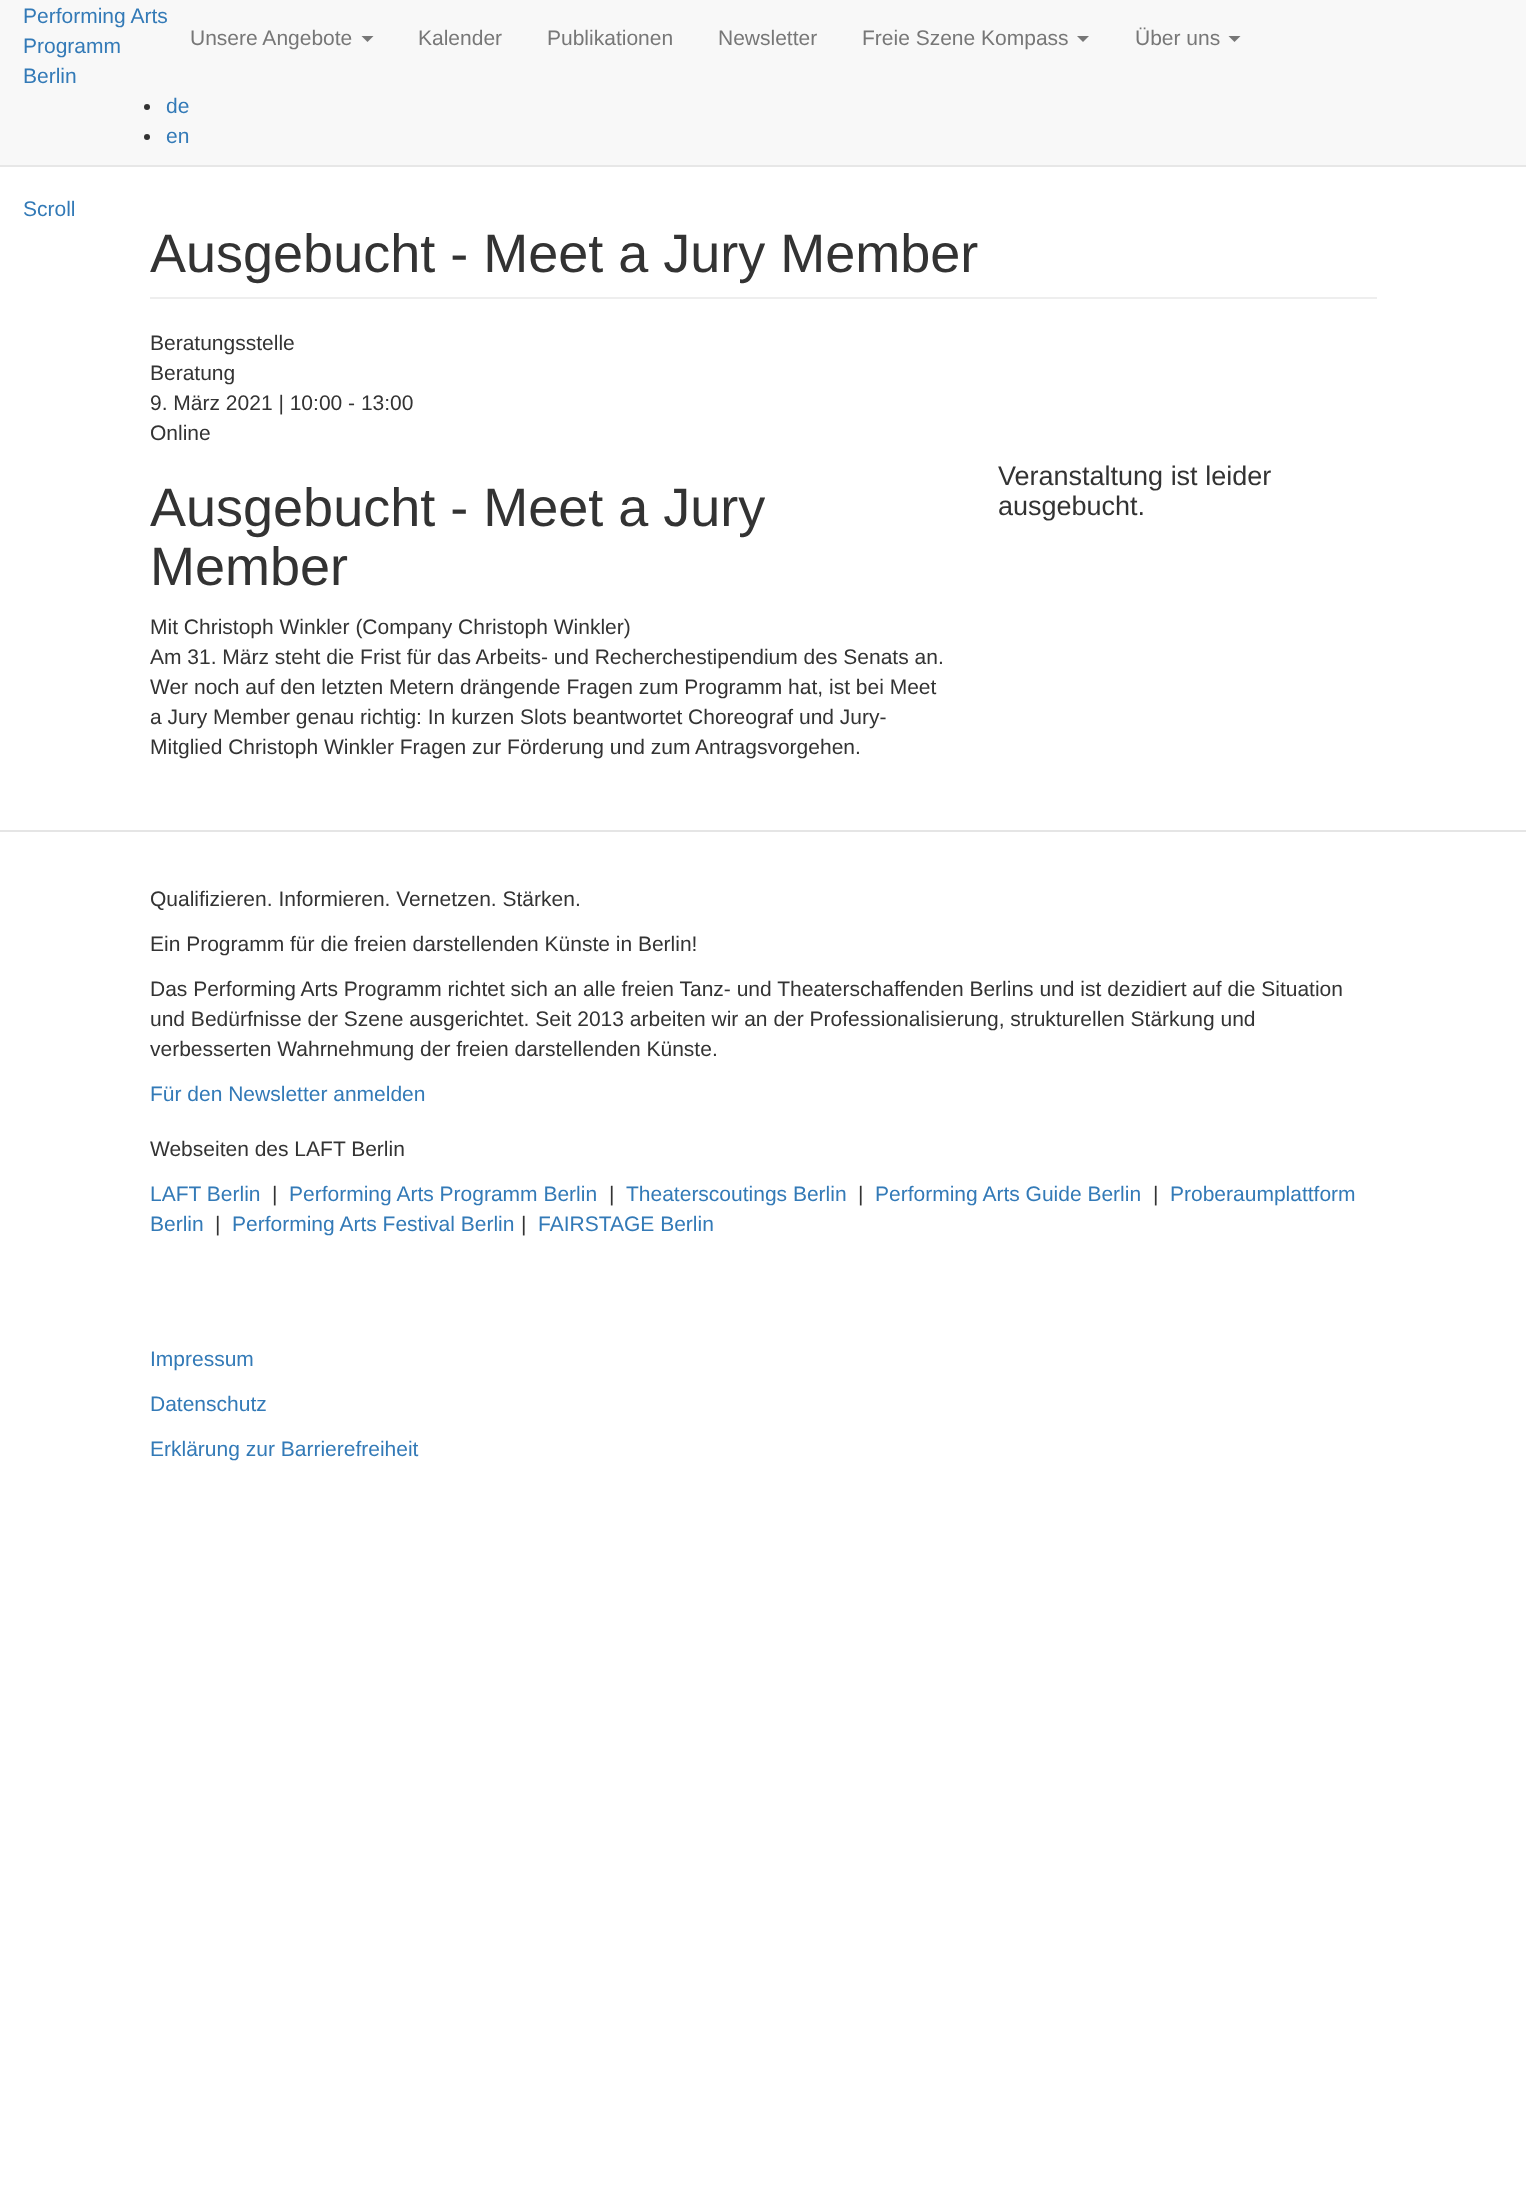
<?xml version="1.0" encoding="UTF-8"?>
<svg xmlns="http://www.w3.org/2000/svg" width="1526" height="2187">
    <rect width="100%" height="100%" fill="#FFFFFF"/>
    <rect x="0" y="0" width="1526" height="165" fill="#F8F8F8"/>
    <rect x="0" y="165" width="1526" height="2" fill="#E7E7E7"/>
    <text font-family="Liberation Sans" font-size="21" fill="#337AB7">
        <tspan x="23" y="23">Performing Arts</tspan>
        <tspan x="23" y="53">Programm</tspan>
        <tspan x="23" y="83">Berlin</tspan>
    </text>
    <circle cx="147" cy="107" r="3" fill="#333333"/>
    <text x="166" y="113" font-family="Liberation Sans" font-size="21" fill="#337AB7">de</text>
    <circle cx="147" cy="137" r="3" fill="#333333"/>
    <text x="166" y="143" font-family="Liberation Sans" font-size="21" fill="#337AB7">en</text>
    <text x="190" y="45" font-family="Liberation Sans" font-size="21" fill="#777777">Unsere Angebote</text>
    <path d="M 361.5 36 H 373.5 L 367.5 42 Z" fill="#777777"/>
    <text x="418" y="45" font-family="Liberation Sans" font-size="21" fill="#777777">Kalender</text>
    <text x="547" y="45" font-family="Liberation Sans" font-size="21" fill="#777777">Publikationen</text>
    <text x="718" y="45" font-family="Liberation Sans" font-size="21" fill="#777777">Newsletter</text>
    <text x="862" y="45" font-family="Liberation Sans" font-size="21" fill="#777777">Freie Szene Kompass</text>
    <path d="M 1077 36 H 1089 L 1083 42 Z" fill="#777777"/>
    <text x="1135" y="45" font-family="Liberation Sans" font-size="21" fill="#777777">Über uns</text>
    <path d="M 1228.5 36 H 1240.5 L 1234.5 42 Z" fill="#777777"/>
    <text x="23" y="216" font-family="Liberation Sans" font-size="21" fill="#337AB7">Scroll</text>
    <rect x="150" y="297" width="1227" height="2" fill="#EEEEEE"/>
    <text x="150" y="272" font-family="Liberation Sans" font-size="54" fill="#333333">Ausgebucht - Meet a Jury Member</text>
    <text font-family="Liberation Sans" font-size="21" fill="#333333">
        <tspan x="150" y="350">Beratungsstelle</tspan>
        <tspan x="150" y="380">Beratung</tspan>
        <tspan x="150" y="410">9. März 2021 | 10:00 - 13:00</tspan>
        <tspan x="150" y="440">Online</tspan>
    </text>
    <text font-family="Liberation Sans" font-size="54" fill="#333333">
        <tspan x="150" y="526">Ausgebucht - Meet a Jury</tspan>
        <tspan x="150" y="585">Member</tspan>
    </text>
    <text font-family="Liberation Sans" font-size="21" fill="#333333">
        <tspan x="150" y="634">Mit Christoph Winkler (Company Christoph Winkler)</tspan>
        <tspan x="150" y="664">Am 31. März steht die Frist für das Arbeits- und Recherchestipendium des Senats an.</tspan>
        <tspan x="150" y="694">Wer noch auf den letzten Metern drängende Fragen zum Programm hat, ist bei Meet</tspan>
        <tspan x="150" y="724">a Jury Member genau richtig: In kurzen Slots beantwortet Choreograf und Jury-</tspan>
        <tspan x="150" y="754">Mitglied Christoph Winkler Fragen zur Förderung und zum Antragsvorgehen.</tspan>
    </text>
    <text font-family="Liberation Sans" font-size="27" fill="#333333">
        <tspan x="998" y="485">Veranstaltung ist leider</tspan>
        <tspan x="998" y="515">ausgebucht.</tspan>
    </text>
    <rect x="0" y="830" width="1526" height="2" fill="#E5E5E5"/>
    <text x="150" y="906" font-family="Liberation Sans" font-size="21" fill="#333333">Qualifizieren. Informieren. Vernetzen. Stärken.</text>
    <text x="150" y="951" font-family="Liberation Sans" font-size="21" fill="#333333">Ein Programm für die freien darstellenden Künste in Berlin!</text>
    <text font-family="Liberation Sans" font-size="21" fill="#333333">
        <tspan x="150" y="996">Das Performing Arts Programm richtet sich an alle freien Tanz- und Theaterschaffenden Berlins und ist dezidiert auf die Situation</tspan>
        <tspan x="150" y="1026">und Bedürfnisse der Szene ausgerichtet. Seit 2013 arbeiten wir an der Professionalisierung, strukturellen Stärkung und</tspan>
        <tspan x="150" y="1056">verbesserten Wahrnehmung der freien darstellenden Künste.</tspan>
    </text>
    <text x="150" y="1101" font-family="Liberation Sans" font-size="21" fill="#337AB7">Für den Newsletter anmelden</text>
    <text x="150" y="1156" font-family="Liberation Sans" font-size="21" fill="#333333">Webseiten des LAFT Berlin</text>
    <text x="150" y="1201" font-family="Liberation Sans" font-size="21" fill="#337AB7">LAFT Berlin</text>
    <text x="272" y="1201" font-family="Liberation Sans" font-size="21" fill="#333333">|</text>
    <text x="289" y="1201" font-family="Liberation Sans" font-size="21" fill="#337AB7">Performing Arts Programm Berlin</text>
    <text x="609" y="1201" font-family="Liberation Sans" font-size="21" fill="#333333">|</text>
    <text x="626" y="1201" font-family="Liberation Sans" font-size="21" fill="#337AB7">Theaterscoutings Berlin</text>
    <text x="858" y="1201" font-family="Liberation Sans" font-size="21" fill="#333333">|</text>
    <text x="875" y="1201" font-family="Liberation Sans" font-size="21" fill="#337AB7">Performing Arts Guide Berlin</text>
    <text x="1153" y="1201" font-family="Liberation Sans" font-size="21" fill="#333333">|</text>
    <text x="1170" y="1201" font-family="Liberation Sans" font-size="21" fill="#337AB7">Proberaumplattform</text>
    <text x="150" y="1231" font-family="Liberation Sans" font-size="21" fill="#337AB7">Berlin</text>
    <text x="215" y="1231" font-family="Liberation Sans" font-size="21" fill="#333333">|</text>
    <text x="232" y="1231" font-family="Liberation Sans" font-size="21" fill="#337AB7">Performing Arts Festival Berlin</text>
    <text x="521" y="1231" font-family="Liberation Sans" font-size="21" fill="#333333">|</text>
    <text x="538" y="1231" font-family="Liberation Sans" font-size="21" fill="#337AB7">FAIRSTAGE Berlin</text>
    <text x="150" y="1366" font-family="Liberation Sans" font-size="21" fill="#337AB7">Impressum</text>
    <text x="150" y="1411" font-family="Liberation Sans" font-size="21" fill="#337AB7">Datenschutz</text>
    <text x="150" y="1456" font-family="Liberation Sans" font-size="21" fill="#337AB7">Erklärung zur Barrierefreiheit</text>
</svg>
